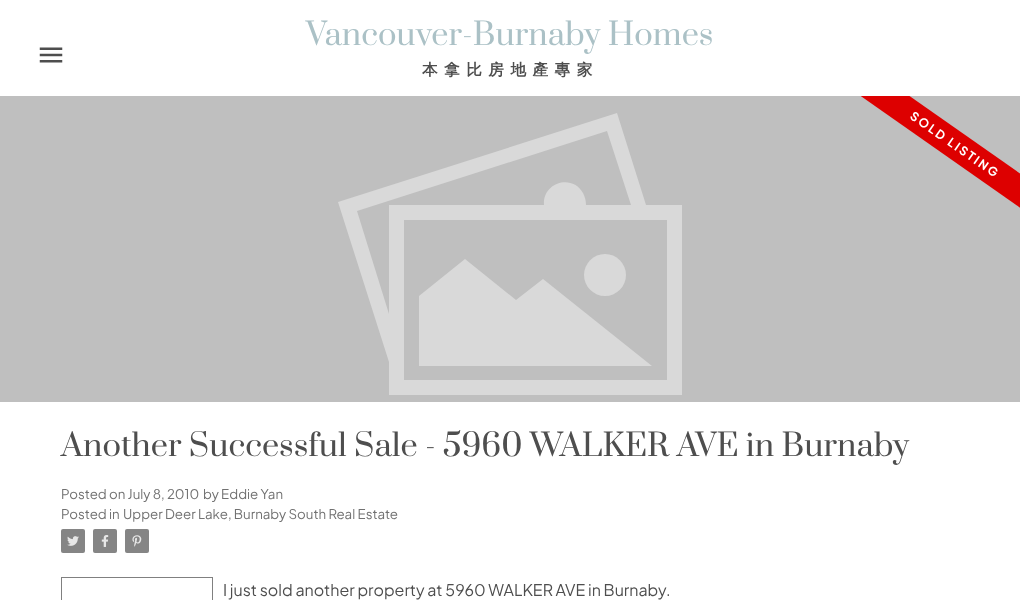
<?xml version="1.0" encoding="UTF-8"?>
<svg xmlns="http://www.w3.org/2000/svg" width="1020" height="600">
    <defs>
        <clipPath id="clip1"><rect x="0" y="96" width="1020" height="306"/></clipPath>
    </defs>
    <rect width="100%" height="100%" fill="#FFFFFF"/>
    <image x="39" y="47" width="24" height="16" href="img_01.png"/>
    <text x="306" y="45" font-family="Prata" font-size="30.6" fill="#ABC1C6">Vancouver-Burnaby Homes</text>
    <text x="422" y="75" font-family="WenQuanYi Zen Hei" font-size="15.6" font-weight="700" letter-spacing="6.5" fill="#4E4E4E">本拿比房地產專家</text>
    <rect x="0" y="96" width="1020" height="306" fill="#BFBFBF"/>
    <path d="M 543 279 L 516 300 L 465 259 L 419 296 V 366 H 652 Z" fill="#D9D9D9"/>
    <circle cx="605" cy="275" r="21" fill="#D9D9D9"/>
    <path d="M 646 205 L 617 113 L 338 202 L 389 362 V 395 H 682 V 205 Z M 357 211 L 607 131 L 631 205 H 586 C 586 201 585 197 583 193 C 572 173 542 183 544 205 H 389 V 314 Z M 667 380 H 404 V 220 H 667 Z" fill="#D9D9D9"/>
    <g clip-path="url(#clip1)">
        <path d="M 861 62 L 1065 205 L 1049 228 L 845 85 Z" fill="#DD0000"/>
    </g>
    <text x="909" y="118" transform="rotate(35 909 118)" font-family="Plus Jakarta Sans" font-size="12" font-weight="700" letter-spacing="2" fill="#FFFFFF">SOLD LISTING</text>
    <text x="61" y="456" font-family="Prata" font-size="30.6" fill="#4E4E4E">Another Successful Sale - 5960 WALKER AVE in Burnaby</text>
    <text x="61" y="499" font-family="Plus Jakarta Sans" font-size="13.3" fill="#717171">Posted on July 8, 2010</text>
    <text x="203" y="499" font-family="Plus Jakarta Sans" font-size="13.3" fill="#717171">by Eddie Yan</text>
    <text x="61" y="519" font-family="Plus Jakarta Sans" font-size="13.3" fill="#717171">Posted in</text>
    <text x="123" y="519" font-family="Plus Jakarta Sans" font-size="13.3" fill="#717171">Upper Deer Lake, Burnaby South Real Estate</text>
    <rect x="61" y="529" width="24" height="24" rx="2" fill="#858585"/>
    <image x="67" y="536" width="12" height="10" href="img_02.png"/>
    <rect x="93" y="529" width="24" height="24" rx="2" fill="#858585"/>
    <image x="101" y="535" width="8" height="12" href="img_03.png"/>
    <rect x="125" y="529" width="24" height="24" rx="2" fill="#858585"/>
    <image x="132" y="535" width="10" height="12" href="img_04.png"/>
    <rect x="61.5" y="577.5" width="151" height="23" fill="none" stroke="#808080"/>
    <text x="223" y="596" font-family="Plus Jakarta Sans" font-size="16" fill="#4E4E4E">I just sold another property at 5960 WALKER AVE in Burnaby.</text>
</svg>
